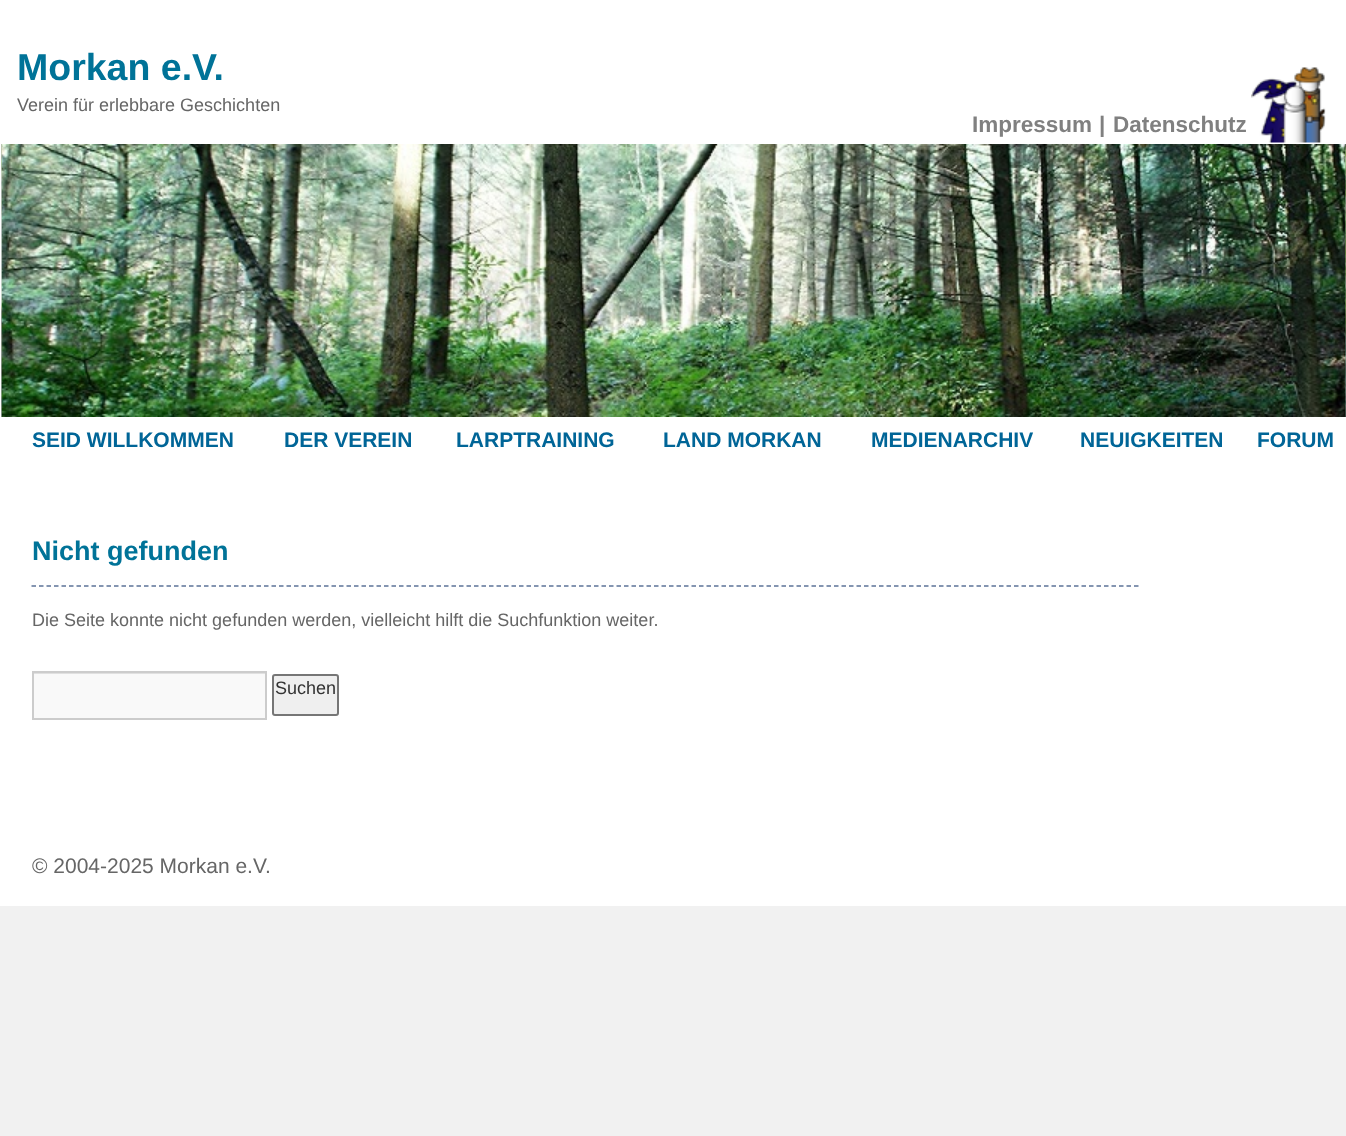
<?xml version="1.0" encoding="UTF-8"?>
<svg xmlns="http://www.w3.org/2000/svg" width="1346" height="1136">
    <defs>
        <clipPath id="clip1"><rect x="33" y="672" width="233" height="47"/></clipPath>
    </defs>
    <rect width="100%" height="100%" fill="#F1F1F1"/>
    <rect x="0" y="0" width="1346" height="906" fill="#FFFFFF"/>
    <text x="17" y="80" font-family="Liberation Sans" font-size="37.5" font-weight="700" fill="#007398">Morkan e.V.</text>
    <text x="17" y="111" font-family="Liberation Sans" font-size="18" fill="#666666">Verein für erlebbare Geschichten</text>
    <text x="972" y="132" font-family="Liberation Sans" font-size="22.5" font-weight="700" fill="#808080">Impressum</text>
    <text x="1099" y="132" font-family="Liberation Sans" font-size="22.5" font-weight="700" fill="#808080">|</text>
    <text x="1113" y="132" font-family="Liberation Sans" font-size="22.5" font-weight="700" fill="#808080">Datenschutz</text>
    <image x="1251" y="67" width="75" height="76" href="img_01.png"/>
    <image x="1" y="144" width="1345" height="273" href="img_02.png"/>
    <image x="1" y="144" width="1345" height="273" href="img_03.png"/>
    <image x="1" y="144" width="1345" height="273" href="img_04.png"/>
    <text x="32" y="447" font-family="Liberation Sans" font-size="21" font-weight="700" fill="#006597">SEID WILLKOMMEN</text>
    <text x="284" y="447" font-family="Liberation Sans" font-size="21" font-weight="700" fill="#006597">DER VEREIN</text>
    <text x="456" y="447" font-family="Liberation Sans" font-size="21" font-weight="700" fill="#006597">LARPTRAINING</text>
    <text x="663" y="447" font-family="Liberation Sans" font-size="21" font-weight="700" fill="#006597">LAND MORKAN</text>
    <text x="871" y="447" font-family="Liberation Sans" font-size="21" font-weight="700" fill="#006597">MEDIENARCHIV</text>
    <text x="1080" y="447" font-family="Liberation Sans" font-size="21" font-weight="700" fill="#006597">NEUIGKEITEN</text>
    <text x="1257" y="447" font-family="Liberation Sans" font-size="21" font-weight="700" fill="#006597">FORUM</text>
    <text x="32" y="560" font-family="Liberation Sans" font-size="27" font-weight="700" fill="#007398">Nicht gefunden</text>
    <path d="M 31.5 586 H 1138.5" fill="none" stroke="#5C7398" stroke-width="1.5" stroke-dasharray="4.5 3"/>
    <text x="32" y="626" font-family="Liberation Sans" font-size="18" fill="#666666">Die Seite konnte nicht gefunden werden, vielleicht hilft die Suchfunktion weiter.</text>
    <rect x="34" y="674" width="231" height="44" fill="#F9F9F9"/>
    <g clip-path="url(#clip1)">
        <path d="M -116 524 H 414 V 867 H -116 Z M 34 674 H 267 V 720 H 34 Z" fill="#E0E0E0" fill-rule="evenodd"/>
    </g>
    <rect x="33" y="672" width="233" height="47" fill="none" stroke="#CCCCCC" stroke-width="2"/>
    <rect x="273" y="675" width="65" height="40" rx="2" fill="#EFEFEF" stroke="#767676" stroke-width="2"/>
    <text x="275" y="694" font-family="Liberation Sans" font-size="18" fill="#333333">Suchen</text>
    <text x="32" y="873" font-family="Liberation Sans" font-size="21" fill="#666666">© 2004-2025 Morkan e.V.</text>
</svg>
